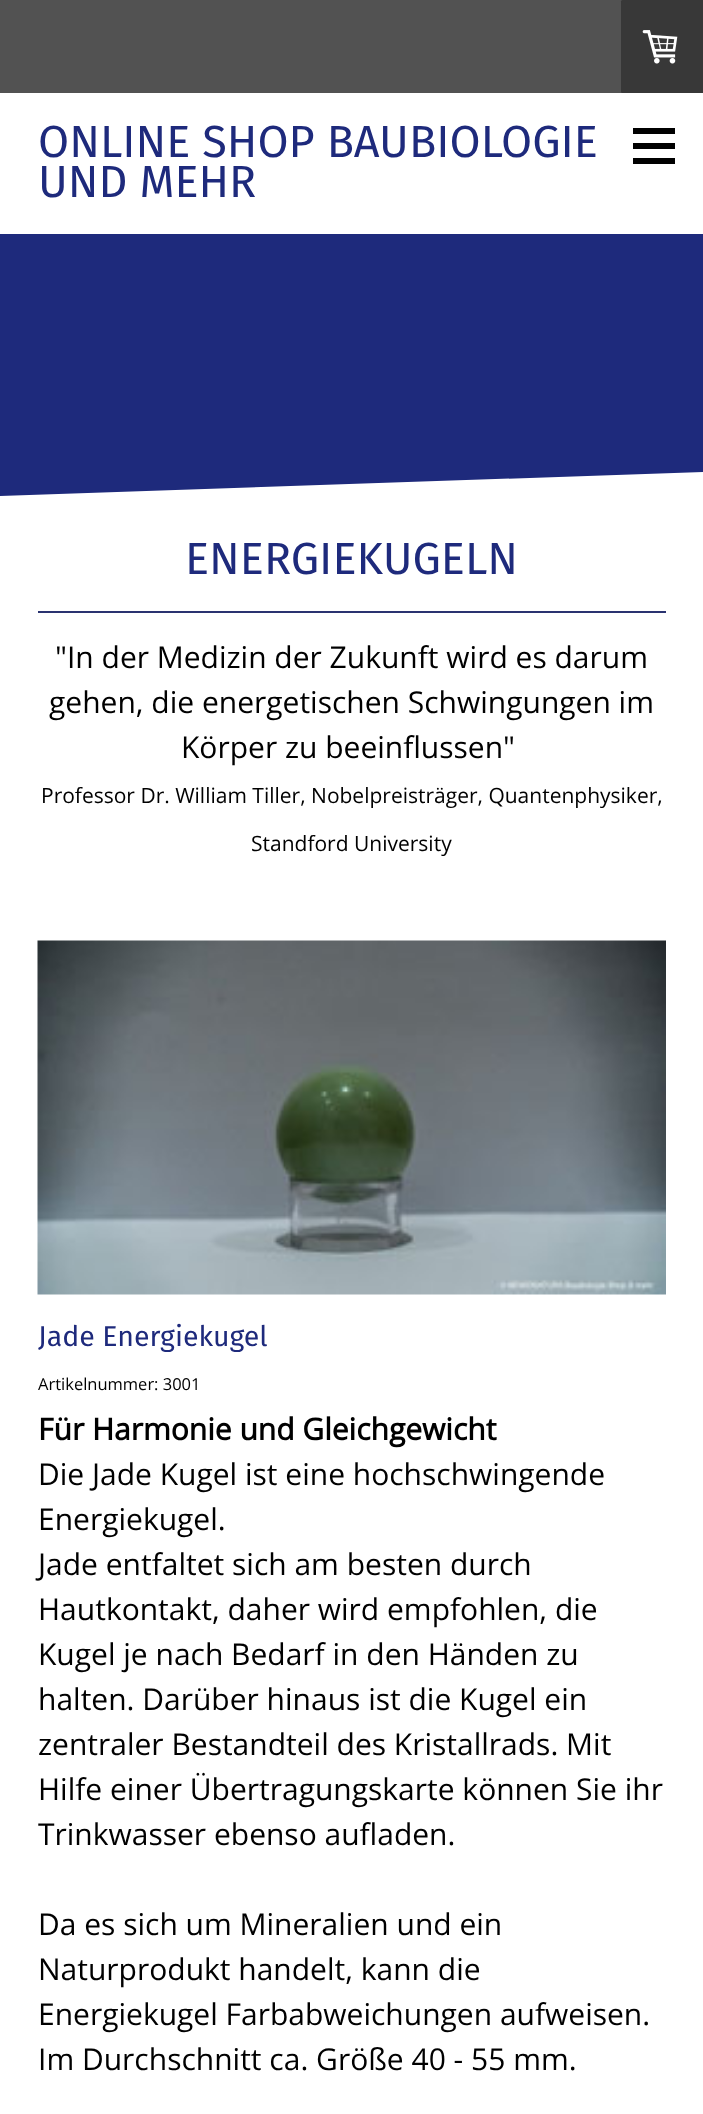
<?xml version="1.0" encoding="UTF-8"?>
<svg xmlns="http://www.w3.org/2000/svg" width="703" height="2114">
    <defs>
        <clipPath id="clip1"><rect x="0" y="470" width="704" height="60"/></clipPath>
    </defs>
    <rect width="100%" height="100%" fill="#FFFFFF"/>
    <rect x="0" y="0" width="703" height="93" fill="#525252"/>
    <rect x="621" y="0" width="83" height="93" rx="1.5" fill="#383838"/>
    <image x="642" y="30" width="36" height="34" href="img_01.png"/>
    <rect x="0" y="234" width="703" height="262" fill="#1E2A7C"/>
    <text font-family="Fira Sans" font-size="45" fill="#1E2A7C">
        <tspan x="38" y="157">ONLINE SHOP BAUBIOLOGIE</tspan>
        <tspan x="38" y="197">UND MEHR</tspan>
    </text>
    <rect x="633" y="128" width="42" height="6" fill="#000000"/>
    <rect x="633" y="143" width="42" height="6" fill="#000000"/>
    <rect x="633" y="158" width="42" height="6" fill="#000000"/>
    <g clip-path="url(#clip1)">
        <path d="M 0 496 L 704 472 V 622 L 0 646 Z" fill="#FFFFFF"/>
    </g>
    <text x="185" y="574" font-family="Fira Sans" font-size="45" fill="#1E2A7C">ENERGIEKUGELN</text>
    <rect x="38" y="611" width="628" height="2" fill="#2A3370"/>
    <text x="55" y="668" font-family="Open Sans" font-size="30" fill="#000000">"In der Medizin der Zukunft wird es darum</text>
    <text x="49" y="713" font-family="Open Sans" font-size="30" fill="#000000">gehen, die energetischen Schwingungen im</text>
    <text x="181" y="758" font-family="Open Sans" font-size="30" fill="#000000">Körper zu beeinflussen"</text>
    <text x="41" y="803" font-family="Open Sans" font-size="21" fill="#000000">Professor Dr. William Tiller, Nobelpreisträger, Quantenphysiker,</text>
    <text x="251" y="851" font-family="Open Sans" font-size="21" fill="#000000">Standford University</text>
    <image x="37" y="940" width="629" height="355" href="img_02.png"/>
    <text x="38" y="1346" font-family="Fira Sans" font-size="28.5" fill="#1E2A7C">Jade Energiekugel</text>
    <text x="38" y="1390" font-family="Open Sans" font-size="16.5" fill="#000000">Artikelnummer: 3001</text>
    <text x="38" y="1440" font-family="Open Sans" font-size="30" font-weight="700" fill="#000000">Für Harmonie und Gleichgewicht</text>
    <text font-family="Open Sans" font-size="30" fill="#000000">
        <tspan x="38" y="1485">Die Jade Kugel ist eine hochschwingende</tspan>
        <tspan x="38" y="1530">Energiekugel.</tspan>
        <tspan x="38" y="1575">Jade entfaltet sich am besten durch</tspan>
        <tspan x="38" y="1620">Hautkontakt, daher wird empfohlen, die</tspan>
        <tspan x="38" y="1665">Kugel je nach Bedarf in den Händen zu</tspan>
        <tspan x="38" y="1710">halten. Darüber hinaus ist die Kugel ein</tspan>
        <tspan x="38" y="1755">zentraler Bestandteil des Kristallrads. Mit</tspan>
        <tspan x="38" y="1800">Hilfe einer Übertragungskarte können Sie ihr</tspan>
        <tspan x="38" y="1845">Trinkwasser ebenso aufladen.</tspan>
    </text>
    <text font-family="Open Sans" font-size="30" fill="#000000">
        <tspan x="38" y="1935">Da es sich um Mineralien und ein</tspan>
        <tspan x="38" y="1980">Naturprodukt handelt, kann die</tspan>
        <tspan x="38" y="2025">Energiekugel Farbabweichungen aufweisen.</tspan>
        <tspan x="38" y="2070">Im Durchschnitt ca. Größe 40 - 55 mm.</tspan>
    </text>
</svg>
